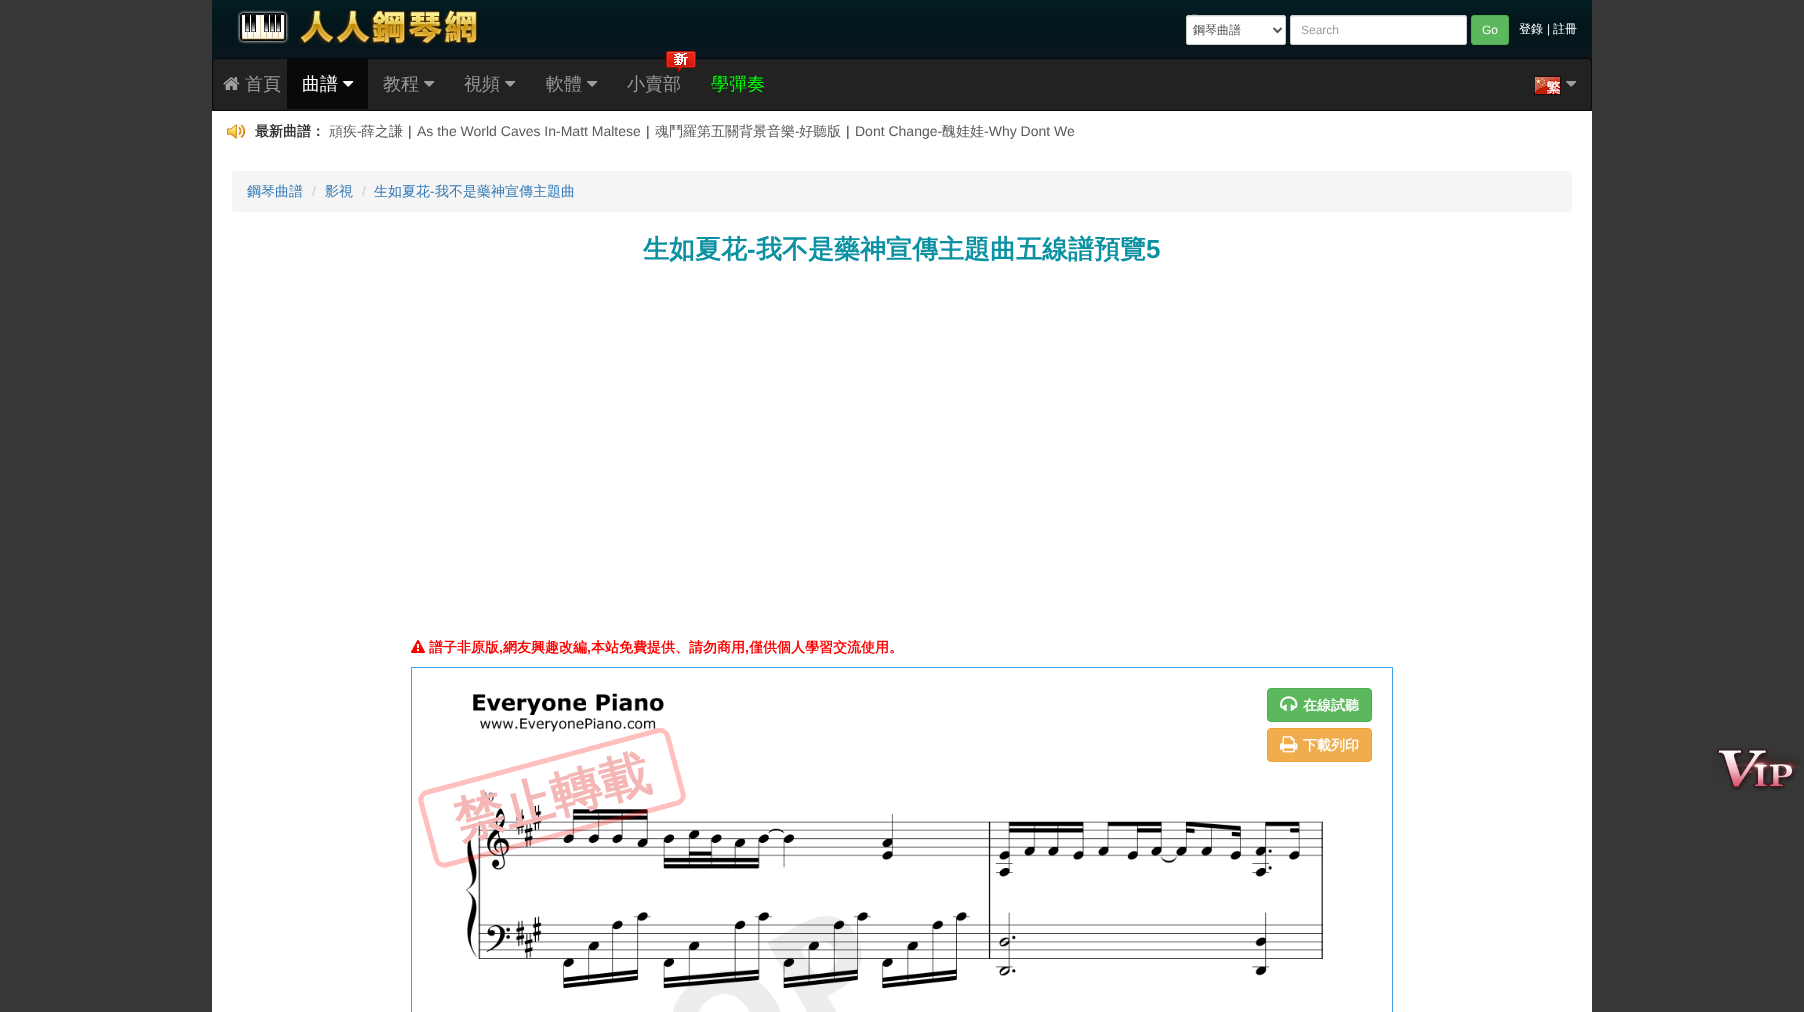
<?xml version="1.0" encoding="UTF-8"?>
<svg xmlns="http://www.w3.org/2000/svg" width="1804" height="1012">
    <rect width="100%" height="100%" fill="#373737"/>
    <image x="212" y="0" width="1380" height="58" href="img_01.png"/>
    <image x="237" y="10" width="240" height="36" href="img_02.png"/>
    <rect x="1186" y="15" width="100" height="30" rx="3" fill="#FFFFFF"/>
    <path d="M 1189 17 H 1283 C 1284 17 1285 18 1285 19 C 1285 18 1285 16 1283 16 H 1205 C 1203 16 1187 12 1187 19 C 1187 18 1188 17 1189 17 Z" fill="#ECECEC"/>
    <rect x="1186.5" y="15.5" width="99" height="29" rx="2.5" fill="none" stroke="#CCCCCC"/>
    <path d="M 1273.5 28 L 1277.5 32 L 1281.5 28" fill="none" stroke="#555555" stroke-width="2"/>
    <text x="1193" y="34" font-family="WenQuanYi Zen Hei" font-size="12" font-weight="500" fill="#555555">鋼琴曲譜</text>
    <rect x="1290" y="15" width="177" height="30" rx="3" fill="#FFFFFF"/>
    <path d="M 1293 17 H 1464 C 1465 17 1466 18 1466 19 C 1466 18 1466 16 1464 16 H 1293 C 1291 16 1291 18 1291 19 C 1291 18 1292 17 1293 17 Z" fill="#ECECEC"/>
    <rect x="1290.5" y="15.5" width="176" height="29" rx="2.5" fill="none" stroke="#CCCCCC"/>
    <text x="1301" y="34" font-family="Liberation Sans" font-size="12" fill="#999999">Search</text>
    <rect x="1471.5" y="15.5" width="37" height="29" rx="2.5" fill="#5CB85C" stroke="#4CAE4C"/>
    <text x="1482" y="34" font-family="Liberation Sans" font-size="12" fill="#FFFFFF">Go</text>
    <text x="1519" y="33" font-family="WenQuanYi Zen Hei" font-size="12" font-weight="500" fill="#FFFFFF">登錄</text>
    <text x="1547" y="33" font-family="Liberation Sans" font-size="12" fill="#FFFFFF">|</text>
    <text x="1553" y="33" font-family="WenQuanYi Zen Hei" font-size="12" font-weight="500" fill="#FFFFFF">註冊</text>
    <rect x="212" y="58" width="1380" height="53" fill="#0C161F"/>
    <rect x="212.5" y="58.5" width="1379" height="52" rx="3.5" fill="#222222" stroke="#080808"/>
    <image x="223" y="77" width="17" height="13" href="img_03.png"/>
    <text x="245" y="90" font-family="WenQuanYi Zen Hei" font-size="18" font-weight="500" fill="#999999">首頁</text>
    <rect x="287" y="59" width="81" height="50" fill="#080808"/>
    <text x="302" y="90" font-family="WenQuanYi Zen Hei" font-size="18" font-weight="500" fill="#FFFFFF">曲譜</text>
    <image x="343" y="81" width="11" height="6" href="img_04.png"/>
    <text x="383" y="90" font-family="WenQuanYi Zen Hei" font-size="18" font-weight="500" fill="#999999">教程</text>
    <image x="424" y="81" width="11" height="6" href="img_05.png"/>
    <text x="464" y="90" font-family="WenQuanYi Zen Hei" font-size="18" font-weight="500" fill="#999999">視頻</text>
    <image x="505" y="81" width="11" height="6" href="img_05.png"/>
    <text x="546" y="90" font-family="WenQuanYi Zen Hei" font-size="18" font-weight="500" fill="#999999">軟體</text>
    <image x="587" y="81" width="11" height="6" href="img_05.png"/>
    <image x="666" y="51" width="30" height="21" href="img_06.png"/>
    <text x="627" y="90" font-family="WenQuanYi Zen Hei" font-size="18" font-weight="500" fill="#999999">小賣部</text>
    <text x="711" y="90" font-family="WenQuanYi Zen Hei" font-size="18" font-weight="500" fill="#00FF00">學彈奏</text>
    <image x="1534" y="76" width="27" height="19" href="img_07.png"/>
    <image x="1566" y="81" width="11" height="6" href="img_05.png"/>
    <rect x="212" y="111" width="1380" height="901" fill="#FFFFFF"/>
    <image x="227" y="124" width="19" height="15" href="img_08.png"/>
    <text x="255" y="136" font-family="WenQuanYi Zen Hei" font-size="14" font-weight="700" fill="#333333">最新曲譜：</text>
    <text x="329" y="136" font-family="WenQuanYi Zen Hei" font-size="14" font-weight="500" fill="#5B5A5A">頑疾</text>
    <text x="357" y="136" font-family="Liberation Sans" font-size="14" fill="#5B5A5A">-</text>
    <text x="361" y="136" font-family="WenQuanYi Zen Hei" font-size="14" font-weight="500" fill="#5B5A5A">薛之謙</text>
    <text x="408" y="136" font-family="Liberation Sans" font-size="14" fill="#333333">|</text>
    <text x="417" y="136" font-family="Liberation Sans" font-size="14" fill="#5B5A5A">As the World Caves In-Matt Maltese</text>
    <text x="646" y="136" font-family="Liberation Sans" font-size="14" fill="#333333">|</text>
    <text x="655" y="136" font-family="WenQuanYi Zen Hei" font-size="14" font-weight="500" fill="#5B5A5A">魂鬥羅第五關背景音樂</text>
    <text x="795" y="136" font-family="Liberation Sans" font-size="14" fill="#5B5A5A">-</text>
    <text x="799" y="136" font-family="WenQuanYi Zen Hei" font-size="14" font-weight="500" fill="#5B5A5A">好聽版</text>
    <text x="846" y="136" font-family="Liberation Sans" font-size="14" fill="#333333">|</text>
    <text x="855" y="136" font-family="Liberation Sans" font-size="14" fill="#5B5A5A">Dont Change-</text>
    <text x="942" y="136" font-family="WenQuanYi Zen Hei" font-size="14" font-weight="500" fill="#5B5A5A">醜娃娃</text>
    <text x="984" y="136" font-family="Liberation Sans" font-size="14" fill="#5B5A5A">-Why Dont We</text>
    <rect x="232" y="171" width="1340" height="41" rx="4" fill="#F5F5F5"/>
    <text x="247" y="196" font-family="WenQuanYi Zen Hei" font-size="14" font-weight="500" fill="#337AB7">鋼琴曲譜</text>
    <text x="312" y="196" font-family="Liberation Sans" font-size="14" fill="#CCCCCC">/</text>
    <text x="325" y="196" font-family="WenQuanYi Zen Hei" font-size="14" font-weight="500" fill="#337AB7">影視</text>
    <text x="362" y="196" font-family="Liberation Sans" font-size="14" fill="#CCCCCC">/</text>
    <text x="374" y="196" font-family="WenQuanYi Zen Hei" font-size="14" font-weight="500" fill="#337AB7">生如夏花</text>
    <text x="430" y="196" font-family="Liberation Sans" font-size="14" fill="#337AB7">-</text>
    <text x="435" y="196" font-family="WenQuanYi Zen Hei" font-size="14" font-weight="500" fill="#337AB7">我不是藥神宣傳主題曲</text>
    <text x="643" y="258" font-family="WenQuanYi Zen Hei" font-size="26" font-weight="700" fill="#0C91A3">生如夏花</text>
    <text x="747" y="258" font-family="Liberation Sans" font-size="26" font-weight="700" fill="#0C91A3">-</text>
    <text x="756" y="258" font-family="WenQuanYi Zen Hei" font-size="26" font-weight="700" fill="#0C91A3">我不是藥神宣傳主題曲五線譜預覽</text>
    <text x="1146" y="258" font-family="Liberation Sans" font-size="26" font-weight="700" fill="#0C91A3">5</text>
    <image x="411" y="640" width="14" height="13" href="img_09.png"/>
    <text x="429" y="652" font-family="WenQuanYi Zen Hei" font-size="14" font-weight="700" fill="#FF0000">譜子非原版</text>
    <text x="499" y="652" font-family="Liberation Sans" font-size="14" font-weight="700" fill="#FF0000">,</text>
    <text x="503" y="652" font-family="WenQuanYi Zen Hei" font-size="14" font-weight="700" fill="#FF0000">網友興趣改編</text>
    <text x="587" y="652" font-family="Liberation Sans" font-size="14" font-weight="700" fill="#FF0000">,</text>
    <text x="591" y="652" font-family="WenQuanYi Zen Hei" font-size="14" font-weight="700" fill="#FF0000">本站免費提供、請勿商用</text>
    <text x="745" y="652" font-family="Liberation Sans" font-size="14" font-weight="700" fill="#FF0000">,</text>
    <text x="749" y="652" font-family="WenQuanYi Zen Hei" font-size="14" font-weight="700" fill="#FF0000">僅供個人學習交流使用。</text>
    <rect x="411.5" y="667.5" width="981" height="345" fill="none" stroke="#3DA3E7"/>
    <image x="466" y="693" width="858" height="319" href="img_10.png"/>
    <rect x="1267.5" y="688.5" width="104" height="33" rx="3.5" fill="#5CB85C" stroke="#4CAE4C"/>
    <image x="1280" y="696" width="18" height="15" href="img_11.png"/>
    <text x="1303" y="710" font-family="WenQuanYi Zen Hei" font-size="14" font-weight="700" fill="#FFFFFF">在線試聽</text>
    <rect x="1267.5" y="728.5" width="104" height="33" rx="3.5" fill="#F0AD4E" stroke="#EEA236"/>
    <image x="1280" y="736" width="18" height="17" href="img_12.png"/>
    <text x="1303" y="750" font-family="WenQuanYi Zen Hei" font-size="14" font-weight="700" fill="#FFFFFF">下載列印</text>
    <path d="M 426.5 792.5 L 658 730.5 C 662 729.5 666.5 732 667.5 736 L 683 793.5 C 684 797.5 681.5 802 677.5 803 L 446 865 C 442 866 437.5 863.5 436.5 859.5 L 421 802 C 420 798 422.5 793.5 426.5 792.5 Z" fill="none" stroke="#FF0000" stroke-opacity="0.25" stroke-width="5"/>
    <text x="460" y="840" transform="rotate(-15 460 840)" font-family="WenQuanYi Zen Hei" font-size="50" font-weight="700" fill="#F5B6B6">禁止轉載</text>
    <image x="1712" y="748" width="89" height="43" href="img_13.png"/>
</svg>
